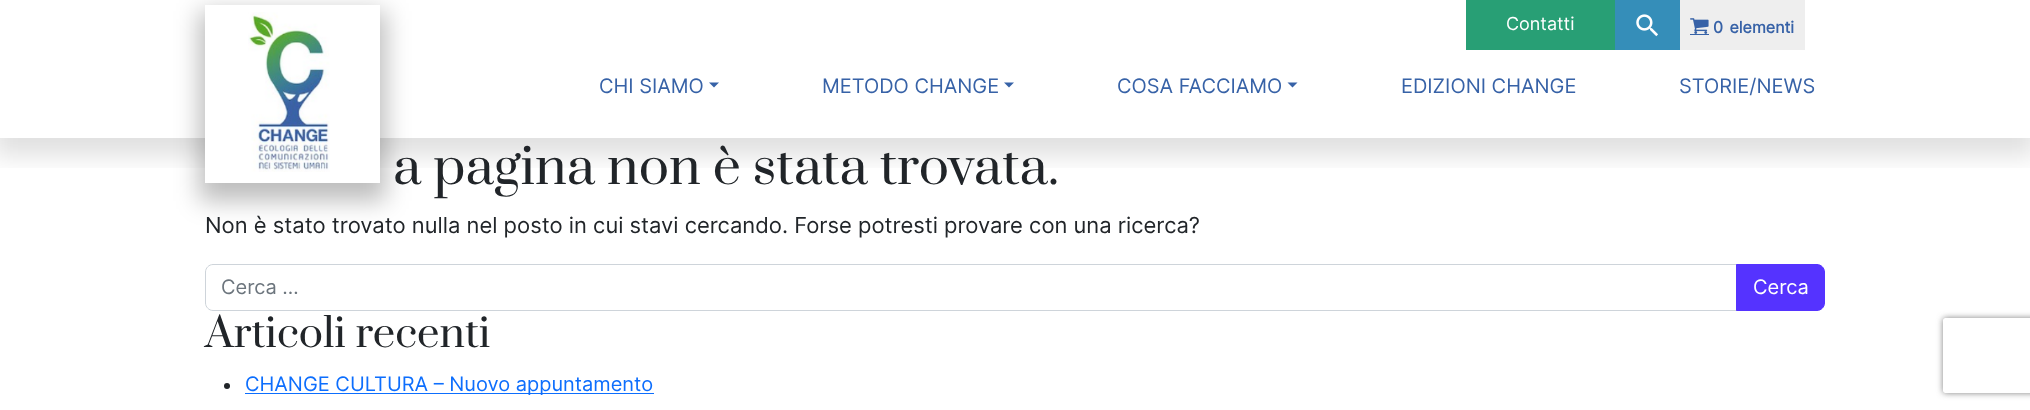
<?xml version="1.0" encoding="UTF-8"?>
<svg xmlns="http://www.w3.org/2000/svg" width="2030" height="410">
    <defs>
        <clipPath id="clip1"><rect x="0" y="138" width="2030" height="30"/></clipPath>
        <filter id="blur1" x="-50%" y="-200%" width="200%" height="500%"><feGaussianBlur stdDeviation="12.5"/></filter>
        <clipPath id="clip2"><path d="M 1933 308 H 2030 V 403 H 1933 Z M 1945.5 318 H 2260.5 C 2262 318 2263 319 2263 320.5 V 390.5 C 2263 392 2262 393 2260.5 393 H 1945.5 C 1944 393 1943 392 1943 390.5 V 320.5 C 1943 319 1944 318 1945.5 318 Z" clip-rule="evenodd"/></clipPath>
        <filter id="blur2" x="-50%" y="-200%" width="200%" height="500%"><feGaussianBlur stdDeviation="3"/></filter>
    </defs>
    <rect width="100%" height="100%" fill="#FFFFFF"/>
    <g clip-path="url(#clip1)">
        <rect x="-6" y="6" width="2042" height="150" fill="#000000" fill-opacity="0.12" filter="url(#blur1)"/>
    </g>
    <rect x="1466" y="0" width="149" height="50" fill="#289F75"/>
    <text x="1506" y="30" font-family="Inter" font-size="18" fill="#FFFFFF">Contatti</text>
    <rect x="1615" y="0" width="65" height="50" fill="#358EB9"/>
    <image x="1636" y="14" width="22" height="23" href="img_01.png"/>
    <rect x="1680" y="0" width="125" height="50" fill="#EEEEEE"/>
    <image x="1690" y="18" width="19" height="16" href="img_02.png"/>
    <text x="1713" y="33" word-spacing="2" font-family="Inter" font-size="16" font-weight="700" fill="#3762A7">0 elementi</text>
    <rect x="1690" y="34" width="19" height="1" fill="#3762A7"/>
    <rect x="0" y="137" width="2030" height="1" fill="#FFFFFF"/>
    <rect x="199" y="11" width="187" height="190" fill="#000000" fill-opacity="0.26" filter="url(#blur1)"/>
    <rect x="205" y="5" width="175" height="178" fill="#FFFFFF"/>
    <image x="248" y="12" width="82" height="160" href="img_03.png"/>
    <text x="599" y="93" font-family="Inter" font-size="20" fill="#3762A7">CHI SIAMO</text>
    <path d="M 709 82.5 H 719 L 714 87.5 Z" fill="#3762A7"/>
    <text x="822" y="93" font-family="Inter" font-size="20" fill="#3762A7">METODO CHANGE</text>
    <path d="M 1004 82.5 H 1014 L 1009 87.5 Z" fill="#3762A7"/>
    <text x="1117" y="93" font-family="Inter" font-size="20" fill="#3762A7">COSA FACCIAMO</text>
    <path d="M 1287.5 82.5 H 1297.5 L 1292.5 87.5 Z" fill="#3762A7"/>
    <text x="1401" y="93" font-family="Inter" font-size="20" fill="#3762A7">EDIZIONI CHANGE</text>
    <text x="1679" y="93" font-family="Inter" font-size="20" fill="#3762A7">STORIE/NEWS</text>
    <text x="393" y="184" font-family="Prata" font-size="50" fill="#212529">a pagina non è stata trovata.</text>
    <text x="205" y="233" font-family="Inter" font-size="22" fill="#212529">Non è stato trovato nulla nel posto in cui stavi cercando. Forse potresti provare con una ricerca?</text>
    <path d="M 213 264.5 H 1737.5 V 310.5 H 213 C 209 310.5 205.5 307 205.5 303 V 272 C 205.5 268 209 264.5 213 264.5 Z" fill="none" stroke="#CED4DA"/>
    <text x="221" y="294" font-family="Inter" font-size="20" fill="#6C757D">Cerca …</text>
    <path d="M 1736.5 264.5 H 1817 C 1821 264.5 1824.5 268 1824.5 272 V 303 C 1824.5 307 1821 310.5 1817 310.5 H 1736.5 Z" fill="#5533FF" stroke="#5533FF"/>
    <text x="1753" y="294" font-family="Inter" font-size="20" fill="#FFFFFF">Cerca</text>
    <text x="205" y="347" font-family="Prata" font-size="40" fill="#212529">Articoli recenti</text>
    <circle cx="227" cy="386" r="3" fill="#212529"/>
    <rect x="245" y="393" width="409" height="1" fill="#0D6EFD"/>
    <text x="245" y="391" font-family="Inter" font-size="20" fill="#0D6EFD">CHANGE CULTURA – Nuovo appuntamento</text>
    <g clip-path="url(#clip2)">
        <rect x="1943" y="318" width="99" height="75" rx="2.5" fill="#808080" filter="url(#blur2)"/>
    </g>
</svg>
